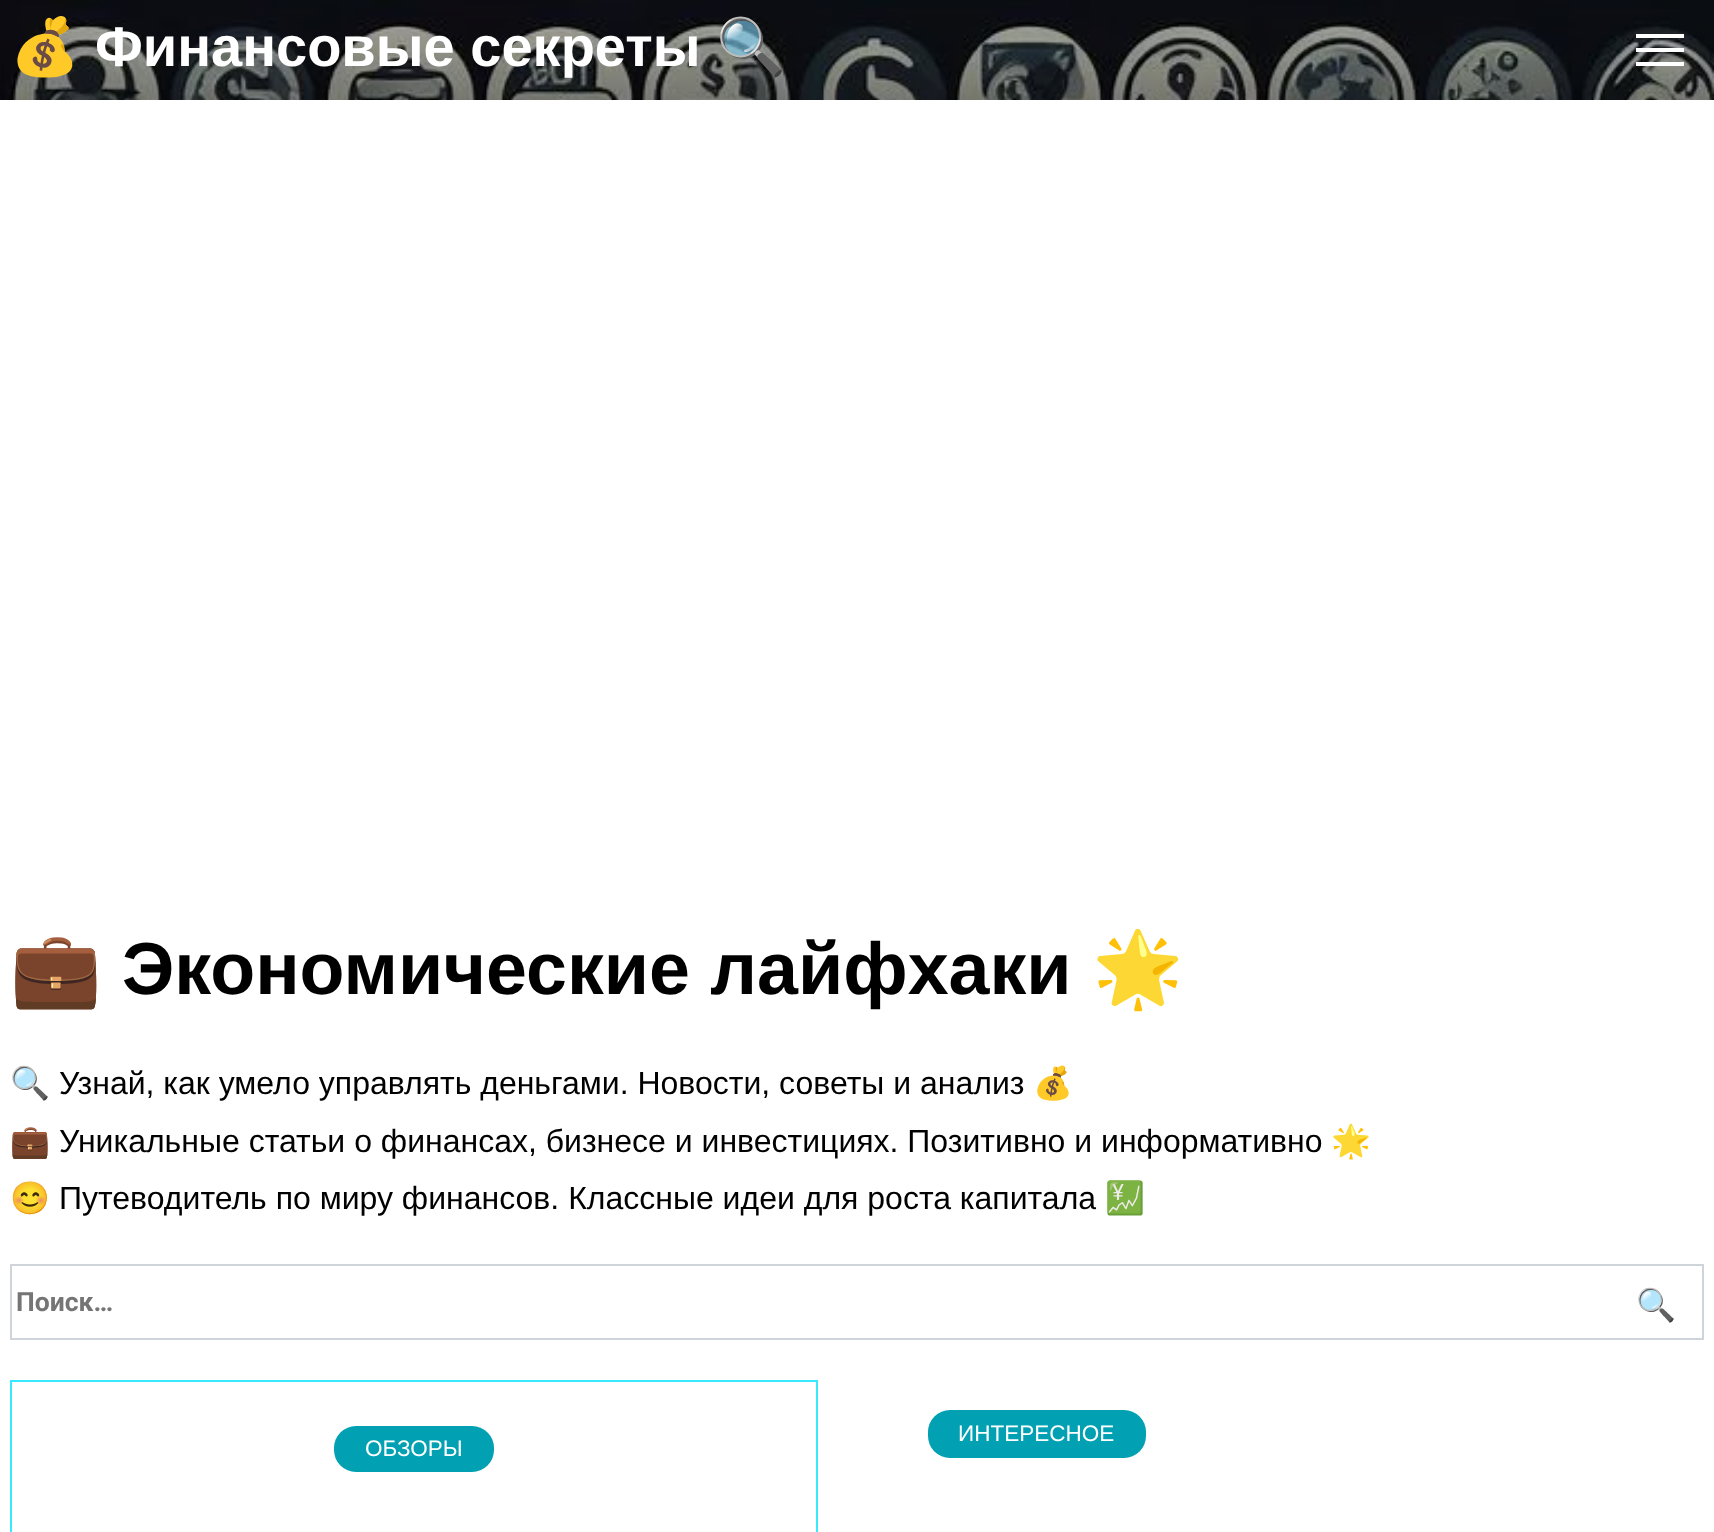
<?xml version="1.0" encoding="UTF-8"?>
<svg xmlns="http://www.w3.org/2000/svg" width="1714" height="1532">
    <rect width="100%" height="100%" fill="#FFFFFF"/>
    <image x="0" y="0" width="1714" height="100" href="img_01.png"/>
    <text x="10" y="66" font-family="Noto Color Emoji" font-size="56" font-weight="700" fill="#FFFFFF">💰</text>
    <text x="95" y="66" font-family="Liberation Sans" font-size="56" font-weight="700" fill="#FFFFFF">Финансовые секреты</text>
    <text x="716" y="66" font-family="Noto Color Emoji" font-size="56" font-weight="700" fill="#FFFFFF">🔍</text>
    <rect x="1636" y="34" width="48" height="4" fill="#FFFFFF"/>
    <rect x="1636" y="48" width="48" height="4" fill="#FFFFFF"/>
    <rect x="1636" y="62" width="48" height="4" fill="#FFFFFF"/>
    <text x="10" y="994" font-family="Noto Color Emoji" font-size="73.6" font-weight="700" fill="#000000">💼</text>
    <text x="122" y="994" font-family="Liberation Sans" font-size="73.6" font-weight="700" fill="#000000">Экономические лайфхаки</text>
    <text x="1092" y="994" font-family="Noto Color Emoji" font-size="73.6" font-weight="700" fill="#000000">🌟</text>
    <text x="10" y="1094" font-family="Noto Color Emoji" font-size="32" fill="#000000">🔍</text>
    <text x="59" y="1094" font-family="Liberation Sans" font-size="32" fill="#000000">Узнай, как умело управлять деньгами. Новости, советы и анализ</text>
    <text x="1033" y="1094" font-family="Noto Color Emoji" font-size="32" fill="#000000">💰</text>
    <text x="10" y="1152" font-family="Noto Color Emoji" font-size="32" fill="#000000">💼</text>
    <text x="59" y="1152" font-family="Liberation Sans" font-size="32" fill="#000000">Уникальные статьи о финансах, бизнесе и инвестициях. Позитивно и информативно</text>
    <text x="1331" y="1152" font-family="Noto Color Emoji" font-size="32" fill="#000000">🌟</text>
    <text x="10" y="1209" font-family="Noto Color Emoji" font-size="32" fill="#000000">😊</text>
    <text x="59" y="1209" font-family="Liberation Sans" font-size="32" fill="#000000">Путеводитель по миру финансов. Классные идеи для роста капитала</text>
    <text x="1105" y="1209" font-family="Noto Color Emoji" font-size="32" fill="#000000">💹</text>
    <rect x="11" y="1265" width="1692" height="74" fill="none" stroke="#CED4DA" stroke-width="2"/>
    <text x="16" y="1311" font-family="Roboto" font-size="26.5" font-weight="700" fill="#757575">Поиск…</text>
    <text x="1636" y="1316" font-family="Noto Color Emoji" font-size="32" fill="#000000">🔍</text>
    <rect x="928" y="1410" width="218" height="48" rx="22" fill="#01A0B2"/>
    <text x="958" y="1441" font-family="Liberation Sans" font-size="22.5" fill="#FFFFFF">ИНТЕРЕСНОЕ</text>
    <rect x="11" y="1381" width="806" height="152" fill="none" stroke="#39EAFE" stroke-width="2"/>
    <rect x="334" y="1426" width="160" height="46" rx="22" fill="#01A0B2"/>
    <text x="365" y="1456" font-family="Liberation Sans" font-size="22.5" fill="#FFFFFF">ОБЗОРЫ</text>
</svg>
